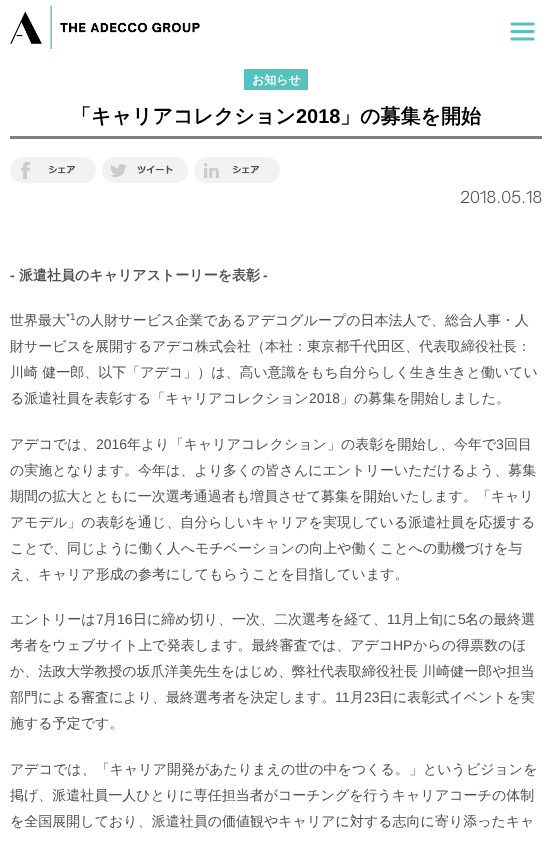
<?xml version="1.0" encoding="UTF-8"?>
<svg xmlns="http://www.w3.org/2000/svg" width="552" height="841">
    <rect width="100%" height="100%" fill="#FFFFFF"/>
    <image x="10" y="6" width="190" height="43" href="img_01.png"/>
    <image x="510" y="22" width="25" height="19" href="img_02.png"/>
    <rect x="10" y="136" width="532" height="3" fill="#808080"/>
    <rect x="244" y="69" width="64" height="21" fill="#54C3BD"/>
    <text x="252" y="84" font-family="WenQuanYi Zen Hei" font-size="12" font-weight="700" fill="#FFFFFF">お知らせ</text>
    <text x="71" y="123" font-family="WenQuanYi Zen Hei" font-size="20" font-weight="700" fill="#000000">「キャリアコレクション</text>
    <text x="296" y="123" font-family="Liberation Sans" font-size="20" font-weight="700" fill="#000000">2018</text>
    <text x="340" y="123" font-family="WenQuanYi Zen Hei" font-size="20" font-weight="700" fill="#000000">」の募集を開始</text>
    <image x="10" y="157" width="86" height="26" href="img_03.png"/>
    <image x="102" y="157" width="86" height="26" href="img_04.png"/>
    <image x="194" y="157" width="86" height="26" href="img_05.png"/>
    <text x="460" y="203" font-family="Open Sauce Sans" font-size="16" font-weight="300" fill="#505050">2018.05.18</text>
    <text x="10" y="280" font-family="Liberation Sans" font-size="14" font-weight="700" fill="#505050">-</text>
    <text x="19" y="280" font-family="WenQuanYi Zen Hei" font-size="14" font-weight="700" fill="#505050">派遣社員のキャリアストーリーを表彰</text>
    <text x="263" y="280" font-family="Liberation Sans" font-size="14" font-weight="700" fill="#505050">-</text>
    <text x="10" y="325" font-family="WenQuanYi Zen Hei" font-size="14" font-weight="500" fill="#505050">世界最大</text>
    <text x="66" y="320" font-family="Liberation Sans" font-size="10" fill="#505050">*1</text>
    <text x="76" y="325" font-family="WenQuanYi Zen Hei" font-size="14" font-weight="500" fill="#505050">の人財サービス企業であるアデコグループの日本法人で、総合人事・人</text>
    <text font-family="WenQuanYi Zen Hei" font-size="14" font-weight="500" fill="#505050">
        <tspan x="10" y="351">財サービスを展開するアデコ株式会社（本社：東京都千代田区、代表取締役社長：</tspan>
        <tspan x="10" y="377">川崎 健一郎、以下「アデコ」）は、高い意識をもち自分らしく生き生きと働いてい</tspan>
        <tspan x="10" y="403">る派遣社員を表彰する「キャリアコレクション</tspan>
    </text>
    <text x="309" y="403" font-family="Liberation Sans" font-size="14" fill="#505050">2018</text>
    <text x="340" y="403" font-family="WenQuanYi Zen Hei" font-size="14" font-weight="500" fill="#505050">」の募集を開始しました。</text>
    <text x="10" y="449" font-family="WenQuanYi Zen Hei" font-size="14" font-weight="500" fill="#505050">アデコでは、</text>
    <text x="96" y="449" font-family="Liberation Sans" font-size="14" fill="#505050">2016</text>
    <text x="127" y="449" font-family="WenQuanYi Zen Hei" font-size="14" font-weight="500" fill="#505050">年より「キャリアコレクション」の表彰を開始し、今年で</text>
    <text x="496" y="449" font-family="Liberation Sans" font-size="14" fill="#505050">3</text>
    <text x="504" y="449" font-family="WenQuanYi Zen Hei" font-size="14" font-weight="500" fill="#505050">回目</text>
    <text font-family="WenQuanYi Zen Hei" font-size="14" font-weight="500" fill="#505050">
        <tspan x="10" y="475">の実施となります。今年は、より多くの皆さんにエントリーいただけるよう、募集</tspan>
        <tspan x="10" y="501">期間の拡大とともに一次選考通過者も増員させて募集を開始いたします。「キャリ</tspan>
        <tspan x="10" y="527">アモデル」の表彰を通じ、自分らしいキャリアを実現している派遣社員を応援する</tspan>
        <tspan x="10" y="553">ことで、同じように働く人へモチベーションの向上や働くことへの動機づけを与</tspan>
        <tspan x="10" y="579">え、キャリア形成の参考にしてもらうことを目指しています。</tspan>
    </text>
    <text x="10" y="624" font-family="WenQuanYi Zen Hei" font-size="14" font-weight="500" fill="#505050">エントリーは</text>
    <text x="96" y="624" font-family="Liberation Sans" font-size="14" fill="#505050">7</text>
    <text x="103" y="624" font-family="WenQuanYi Zen Hei" font-size="14" font-weight="500" fill="#505050">月</text>
    <text x="117" y="624" font-family="Liberation Sans" font-size="14" fill="#505050">16</text>
    <text x="133" y="624" font-family="WenQuanYi Zen Hei" font-size="14" font-weight="500" fill="#505050">日に締め切り、一次、二次選考を経て、</text>
    <text x="387" y="624" font-family="Liberation Sans" font-size="14" fill="#505050">11</text>
    <text x="401" y="624" font-family="WenQuanYi Zen Hei" font-size="14" font-weight="500" fill="#505050">月上旬に</text>
    <text x="458" y="624" font-family="Liberation Sans" font-size="14" fill="#505050">5</text>
    <text x="465" y="624" font-family="WenQuanYi Zen Hei" font-size="14" font-weight="500" fill="#505050">名の最終選</text>
    <text x="10" y="650" font-family="WenQuanYi Zen Hei" font-size="14" font-weight="500" fill="#505050">考者をウェブサイト上で発表します。最終審査では、アデコ</text>
    <text x="393" y="650" font-family="Liberation Sans" font-size="14" fill="#505050">HP</text>
    <text x="413" y="650" font-family="WenQuanYi Zen Hei" font-size="14" font-weight="500" fill="#505050">からの得票数のほ</text>
    <text font-family="WenQuanYi Zen Hei" font-size="14" font-weight="500" fill="#505050">
        <tspan x="10" y="676">か、法政大学教授の坂爪洋美先生をはじめ、弊社代表取締役社長 川崎健一郎や担当</tspan>
        <tspan x="10" y="702">部門による審査により、最終選考者を決定します。</tspan>
    </text>
    <text x="335" y="702" font-family="Liberation Sans" font-size="14" fill="#505050">11</text>
    <text x="350" y="702" font-family="WenQuanYi Zen Hei" font-size="14" font-weight="500" fill="#505050">月</text>
    <text x="364" y="702" font-family="Liberation Sans" font-size="14" fill="#505050">23</text>
    <text x="379" y="702" font-family="WenQuanYi Zen Hei" font-size="14" font-weight="500" fill="#505050">日に表彰式イベントを実</text>
    <text x="10" y="728" font-family="WenQuanYi Zen Hei" font-size="14" font-weight="500" fill="#505050">施する予定です。</text>
    <text font-family="WenQuanYi Zen Hei" font-size="14" font-weight="500" fill="#505050">
        <tspan x="10" y="774">アデコでは、「キャリア開発があたりまえの世の中をつくる。」というビジョンを</tspan>
        <tspan x="10" y="800">掲げ、派遣社員一人ひとりに専任担当者がコーチングを行うキャリアコーチの体制</tspan>
        <tspan x="10" y="826">を全国展開しており、派遣社員の価値観やキャリアに対する志向に寄り添ったキャ</tspan>
    </text>
</svg>
